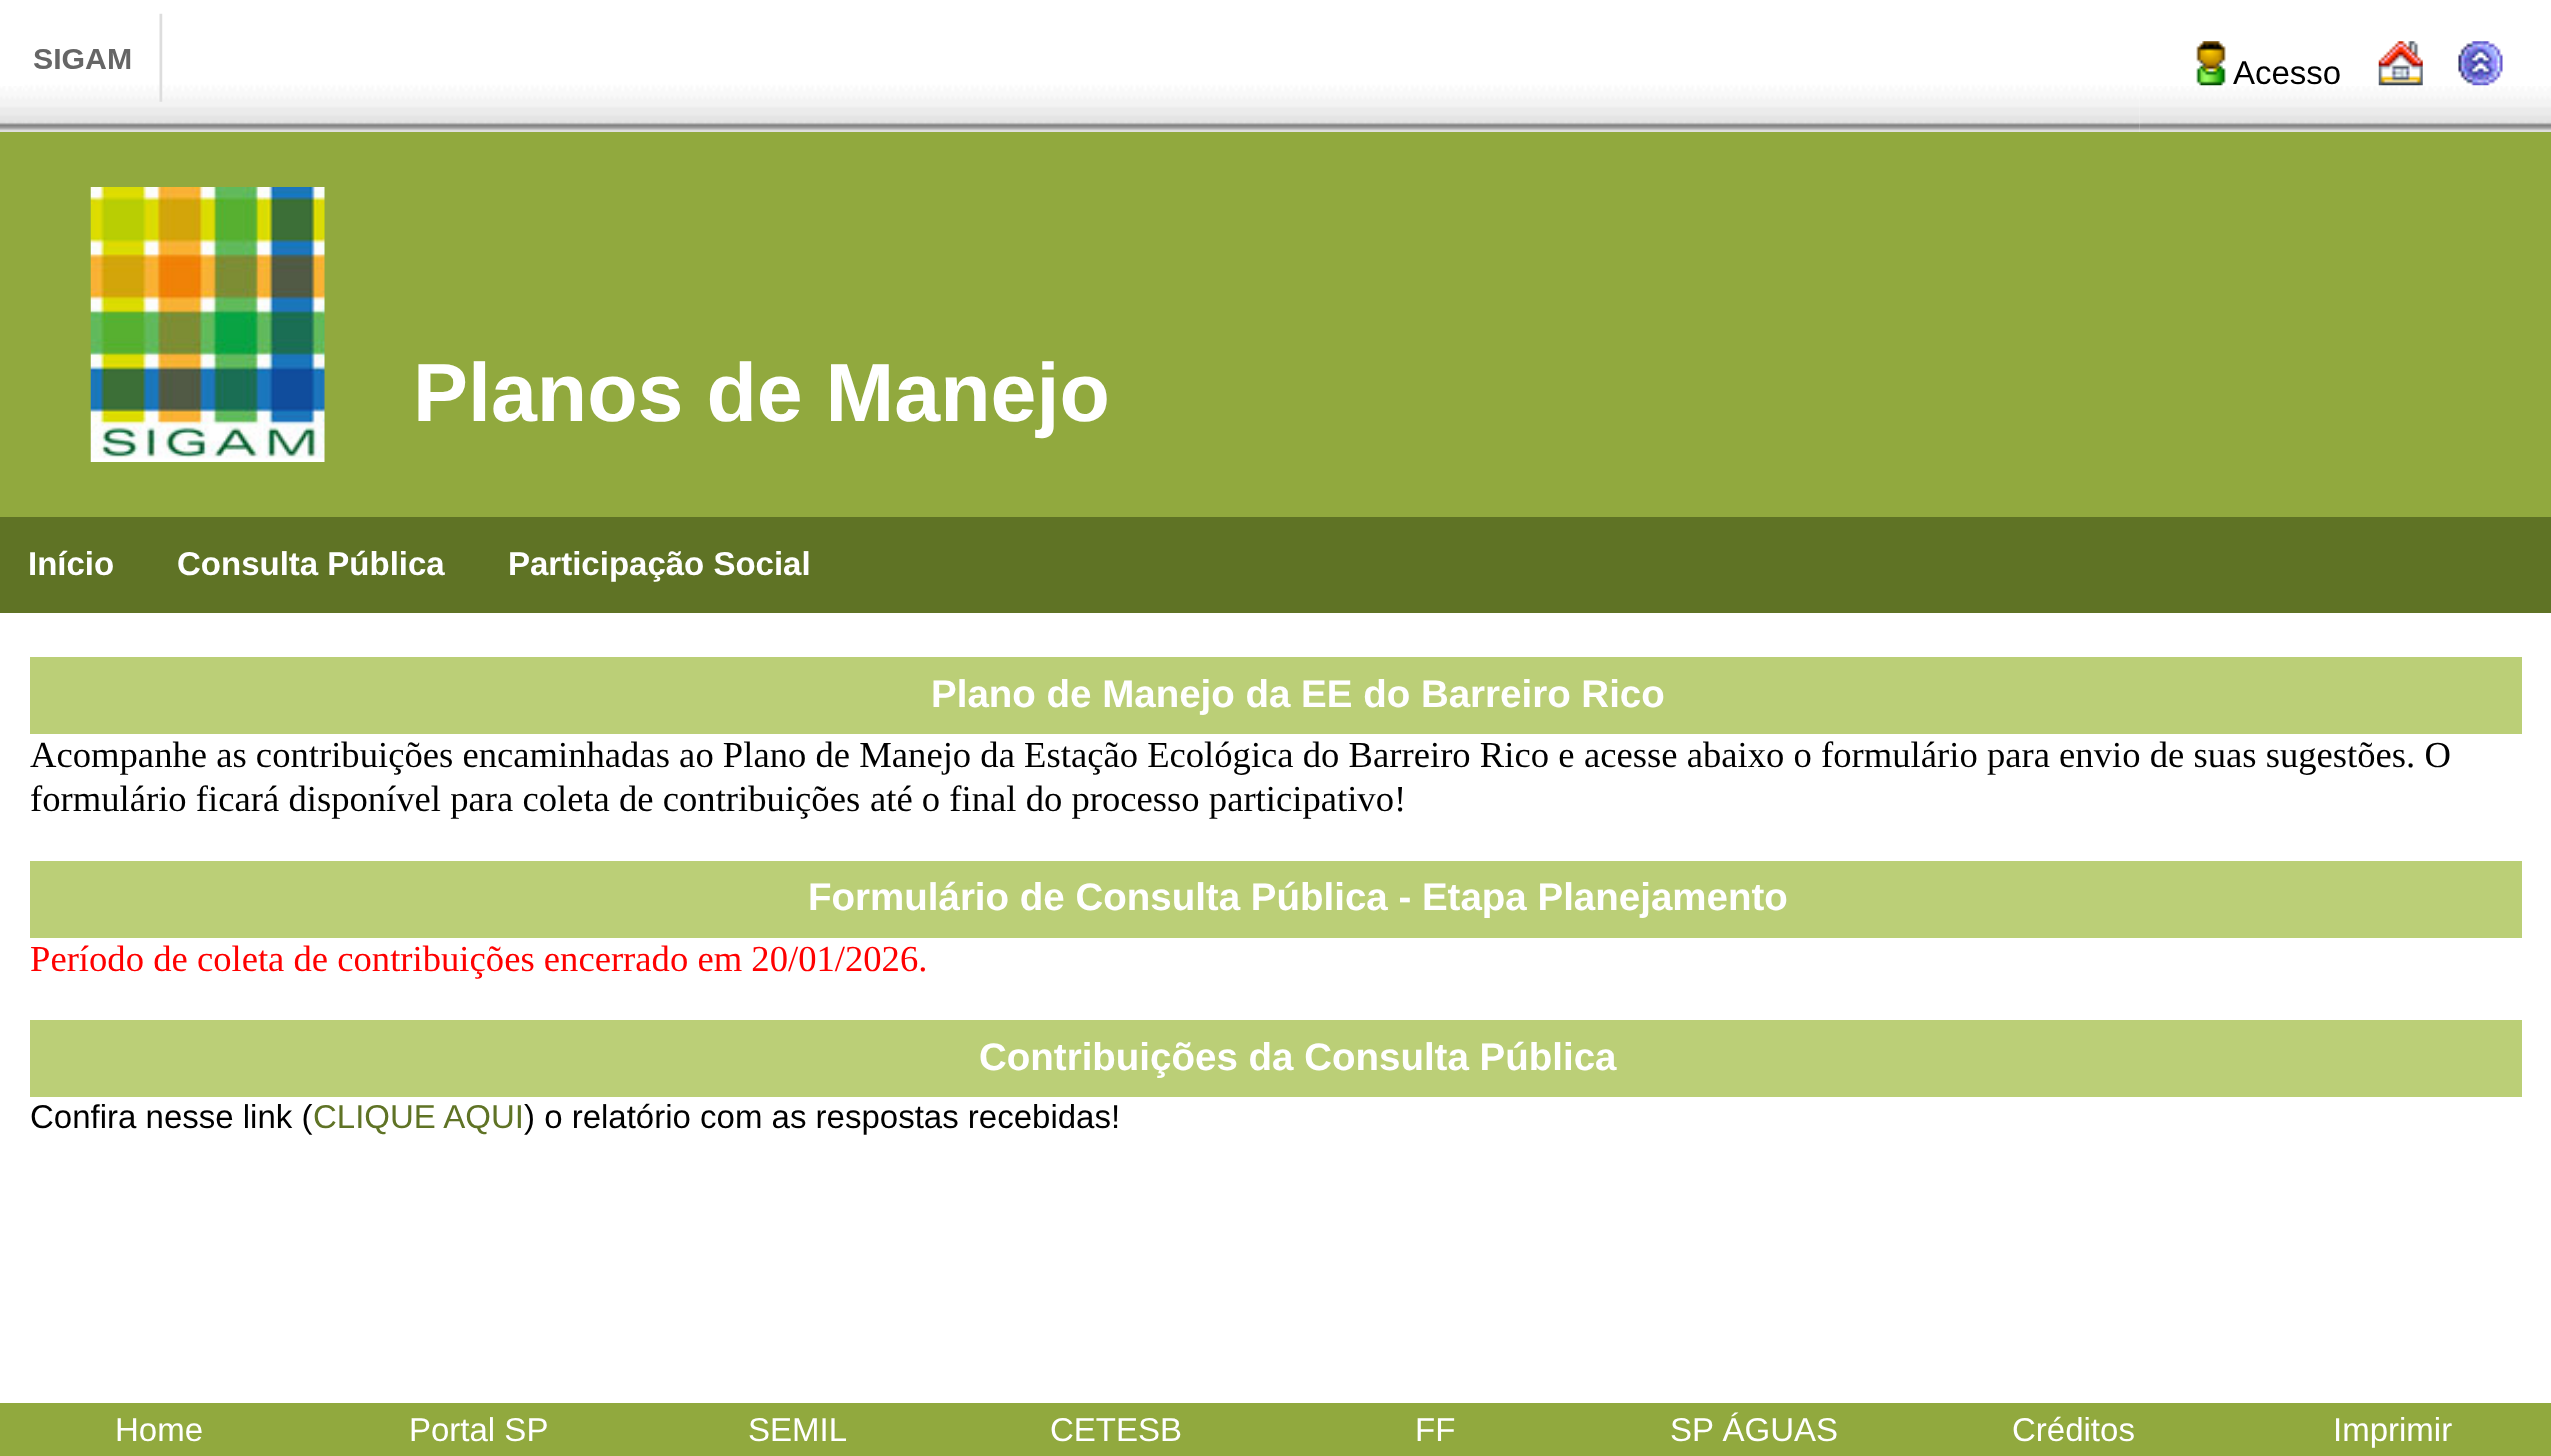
<?xml version="1.0" encoding="UTF-8"?>
<svg xmlns="http://www.w3.org/2000/svg" width="2551" height="1456">
    <rect width="100%" height="100%" fill="#FFFFFF"/>
    <image x="0" y="86" width="2551" height="46" href="img_01.png"/>
    <image x="23" y="13" width="2117" height="119" href="img_02.png"/>
    <image x="2196" y="41" width="30" height="45" href="img_03.png"/>
    <text x="2233" y="84" font-family="Liberation Sans" font-size="33" fill="#000000">Acesso</text>
    <image x="2378" y="41" width="45" height="45" href="img_04.png"/>
    <image x="2458" y="41" width="45" height="45" href="img_05.png"/>
    <rect x="0" y="132" width="2551" height="385" fill="#91A93E"/>
    <image x="90" y="187" width="235" height="275" href="img_06.png"/>
    <text x="413" y="421" font-family="Liberation Sans" font-size="82.5" font-weight="700" fill="#FFFFFF">Planos de Manejo</text>
    <rect x="0" y="517" width="2551" height="96" fill="#5F7325"/>
    <text x="28" y="575" font-family="Liberation Sans" font-size="33" font-weight="700" fill="#FFFFFF">Início</text>
    <text x="177" y="575" font-family="Liberation Sans" font-size="33" font-weight="700" fill="#FFFFFF">Consulta Pública</text>
    <text x="508" y="575" font-family="Liberation Sans" font-size="33" font-weight="700" fill="#FFFFFF">Participação Social</text>
    <rect x="30" y="657" width="2492" height="77" fill="#BBCF77"/>
    <text x="931" y="707" font-family="Liberation Sans" font-size="38.5" font-weight="700" fill="#FFFFFF">Plano de Manejo da EE do Barreiro Rico</text>
    <text x="30" y="767" font-family="Liberation Serif" font-size="36.65" fill="#000000">Acompanhe as contribuições encaminhadas ao Plano de Manejo da Estação Ecológica do Barreiro Rico e</text>
    <text x="1584" y="767" font-family="Liberation Serif" font-size="36.65" fill="#000000">acesse abaixo o formulário para envio de suas sugestões. O</text>
    <text x="30" y="811" font-family="Liberation Serif" font-size="36.65" fill="#000000">formulário ficará disponível para coleta de contribuições</text>
    <text x="870" y="811" font-family="Liberation Serif" font-size="36.65" fill="#000000">até o final do processo participativo!</text>
    <rect x="30" y="861" width="2492" height="77" fill="#BBCF77"/>
    <text x="808" y="910" font-family="Liberation Sans" font-size="38.5" font-weight="700" fill="#FFFFFF">Formulário de Consulta Pública - Etapa Planejamento</text>
    <text x="30" y="971" font-family="Liberation Serif" font-size="36.65" fill="#FF0000">Período de coleta de contribuições encerrado em 20/01/2026.</text>
    <rect x="30" y="1020" width="2492" height="77" fill="#BBCF77"/>
    <text x="979" y="1070" font-family="Liberation Sans" font-size="38.5" font-weight="700" fill="#FFFFFF">Contribuições da Consulta Pública</text>
    <text x="30" y="1128" font-family="Liberation Sans" font-size="33" fill="#000000">Confira nesse link (</text>
    <text x="313" y="1128" font-family="Liberation Sans" font-size="33" fill="#5F7325">CLIQUE AQUI</text>
    <text x="524" y="1128" font-family="Liberation Sans" font-size="33" fill="#000000">) o relatório com as respostas recebidas!</text>
    <rect x="0" y="1403" width="2551" height="53" fill="#91A93E"/>
    <text x="115" y="1441" font-family="Liberation Sans" font-size="33" fill="#FFFFFF">Home</text>
    <text x="409" y="1441" font-family="Liberation Sans" font-size="33" fill="#FFFFFF">Portal SP</text>
    <text x="748" y="1441" font-family="Liberation Sans" font-size="33" fill="#FFFFFF">SEMIL</text>
    <text x="1050" y="1441" font-family="Liberation Sans" font-size="33" fill="#FFFFFF">CETESB</text>
    <text x="1415" y="1441" font-family="Liberation Sans" font-size="33" fill="#FFFFFF">FF</text>
    <text x="1670" y="1441" font-family="Liberation Sans" font-size="33" fill="#FFFFFF">SP ÁGUAS</text>
    <text x="2012" y="1441" font-family="Liberation Sans" font-size="33" fill="#FFFFFF">Créditos</text>
    <text x="2333" y="1441" font-family="Liberation Sans" font-size="33" fill="#FFFFFF">Imprimir</text>
</svg>
